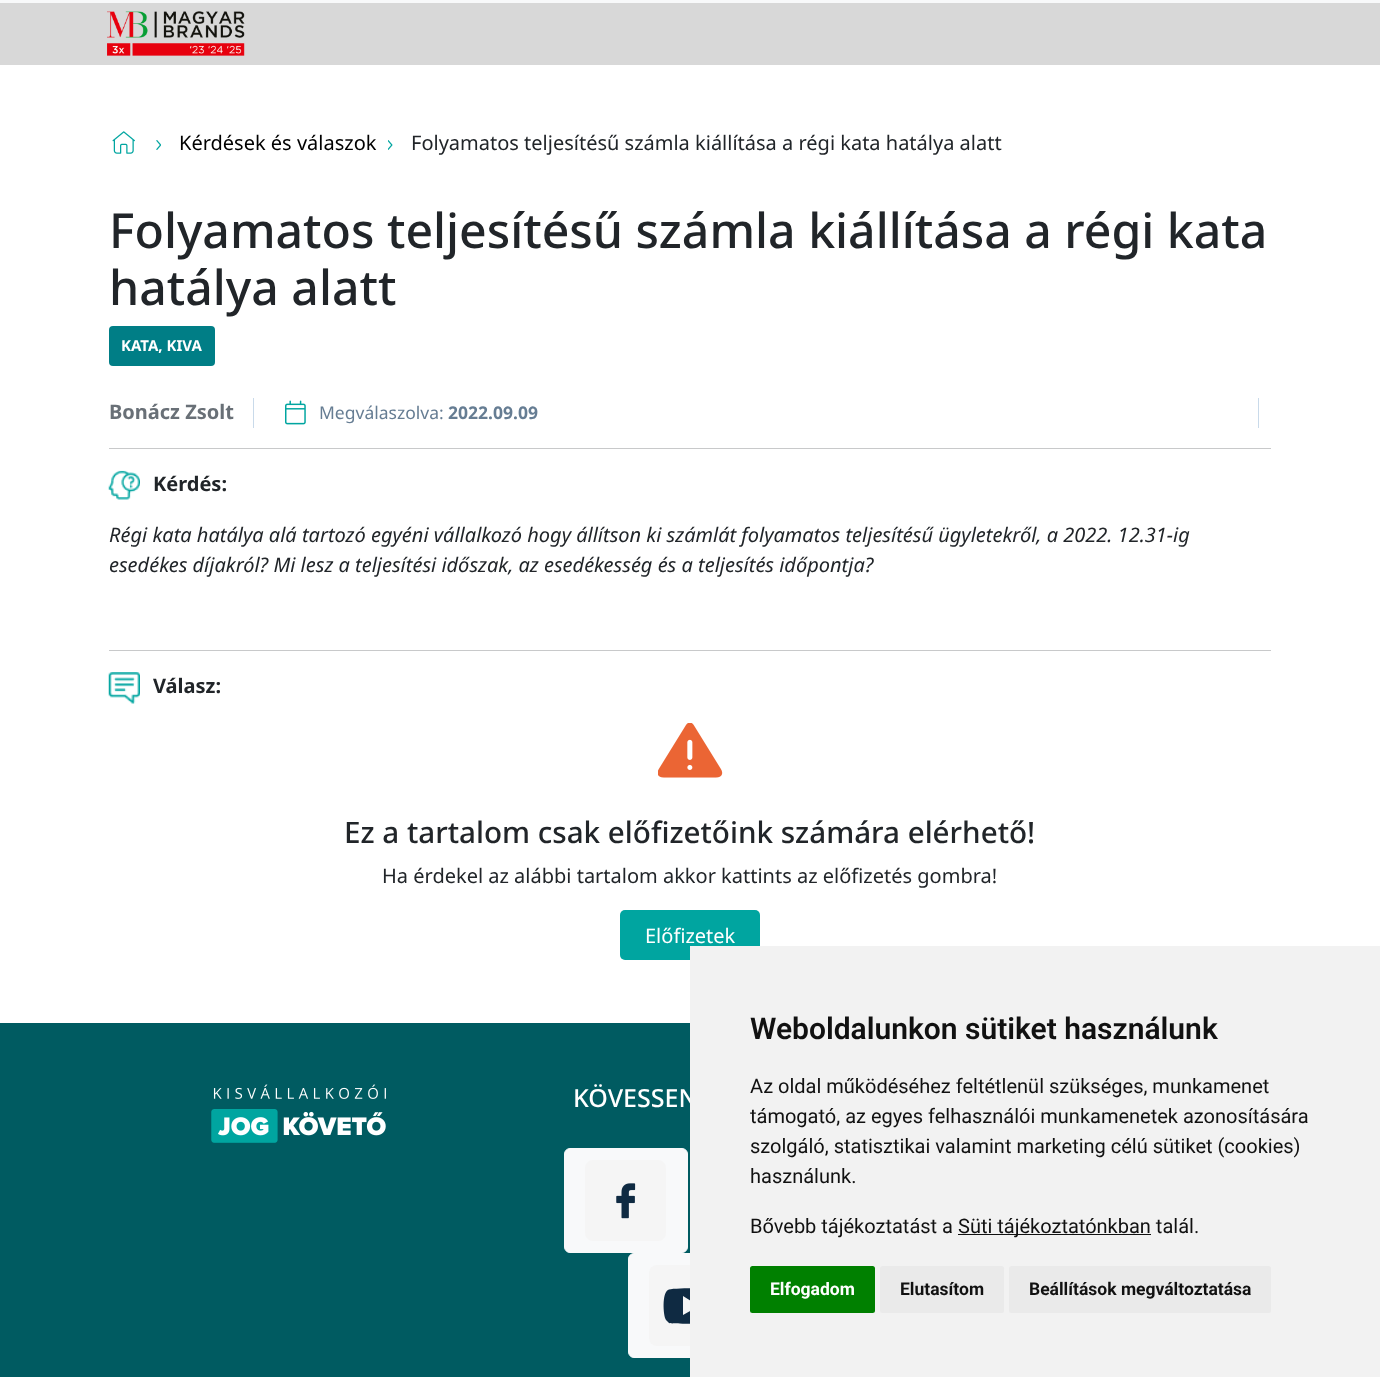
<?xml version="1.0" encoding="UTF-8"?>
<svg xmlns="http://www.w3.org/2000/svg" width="1380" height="1377">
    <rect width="100%" height="100%" fill="#FFFFFF"/>
    <rect x="0" y="0" width="1380" height="3" fill="#F8F9FA"/>
    <rect x="0" y="3" width="1380" height="62" fill="#D8D8D8"/>
    <image x="107" y="11" width="138" height="45" href="img_01.png"/>
    <image x="112" y="131" width="23" height="23" href="img_02.png"/>
    <image x="156" y="140" width="5" height="10" href="img_03.png"/>
    <text x="179" y="150" font-family="Noto Sans" font-size="20" fill="#000000">Kérdések és válaszok</text>
    <image x="388" y="140" width="5" height="10" href="img_04.png"/>
    <text x="411" y="150" font-family="Noto Sans" font-size="20" fill="#212529">Folyamatos teljesítésű számla kiállítása a régi kata hatálya alatt</text>
    <text font-family="Noto Sans" font-size="48.2" font-weight="500" fill="#212529">
        <tspan x="109" y="248">Folyamatos teljesítésű számla kiállítása a régi kata</tspan>
        <tspan x="109" y="305">hatálya alatt</tspan>
    </text>
    <rect x="109" y="326" width="106" height="40" rx="4" fill="#007E86"/>
    <text x="121" y="351" font-family="Noto Sans" font-size="15" font-weight="700" fill="#FFFFFF">KATA, KIVA</text>
    <rect x="1258" y="398" width="1" height="30" fill="#C9DAEA"/>
    <rect x="253" y="398" width="1" height="30" fill="#C9DAEA"/>
    <text x="109" y="419" font-family="Noto Sans" font-size="20" font-weight="700" fill="#697077">Bonácz Zsolt</text>
    <image x="285" y="400" width="21" height="25" href="img_05.png"/>
    <text x="319" y="419" font-family="Noto Sans" font-size="17.5" fill="#667D93">Megválaszolva:</text>
    <text x="448" y="419" font-family="Noto Sans" font-size="17.5" font-weight="700" fill="#667D93">2022.09.09</text>
    <rect x="109" y="448" width="1162" height="1" fill="#C8C9CA"/>
    <image x="108" y="470" width="32" height="30" href="img_06.png"/>
    <text x="153" y="491" font-family="Noto Sans" font-size="20" font-weight="700" fill="#212529">Kérdés:</text>
    <text font-family="Noto Sans" font-size="20" font-style="italic" fill="#212529">
        <tspan x="109" y="542">Régi kata hatálya alá tartozó egyéni vállalkozó hogy állítson ki számlát folyamatos teljesítésű ügyletekről, a 2022. 12.31-ig</tspan>
        <tspan x="109" y="572">esedékes díjakról? Mi lesz a teljesítési időszak, az esedékesség és a teljesítés időpontja?</tspan>
    </text>
    <rect x="109" y="650" width="1162" height="1" fill="#C8C9CA"/>
    <image x="108" y="672" width="32" height="32" href="img_07.png"/>
    <text x="153" y="693" font-family="Noto Sans" font-size="20" font-weight="700" fill="#212529">Válasz:</text>
    <image x="658" y="723" width="65" height="55" href="img_08.png"/>
    <text x="344" y="843" font-family="Noto Sans" font-size="29.6" font-weight="500" fill="#212529">Ez a tartalom csak előfizetőink számára elérhető!</text>
    <text x="382" y="883" font-family="Noto Sans" font-size="20" fill="#212529">Ha érdekel az alábbi tartalom akkor kattints az előfizetés gombra!</text>
    <rect x="620" y="910" width="140" height="50" rx="5" fill="#00A5A0"/>
    <text x="645" y="943" font-family="Noto Sans" font-size="20" fill="#FFFFFF">Előfizetek</text>
    <rect x="0" y="1023" width="690" height="354" fill="#005B61"/>
    <image x="211" y="1084" width="175" height="59" href="img_09.png"/>
    <text x="573" y="1107" font-family="Noto Sans" font-size="25" font-weight="500" fill="#FFFFFF">KÖVESSEN</text>
    <rect x="564.5" y="1148.5" width="123" height="104" rx="5.5" fill="#F8F9FA" stroke="#F8F9FA"/>
    <image x="585" y="1160" width="81" height="81" href="img_10.png"/>
    <rect x="628.5" y="1253.5" width="122" height="104" rx="5.5" fill="#F8F9FA" stroke="#F8F9FA"/>
    <rect x="649" y="1265" width="81" height="81" rx="8" fill="#F5F5F5"/>
    <path d="M 712 1292 C 712 1290 711 1289 709 1289 C 705 1288 670 1288 668 1290 C 662 1293 663 1315 666 1320 C 667 1321 668 1322 669 1323 C 673 1324 708 1324 711 1322 C 716 1318 715 1297 712 1292 Z M 683 1315 V 1296 L 699 1306 Z" fill="#0F2A42"/>
    <rect x="690" y="946" width="690" height="431" fill="#F2F2F2"/>
    <text x="750" y="1039" font-family="Roboto" font-size="30" font-weight="600" fill="#111111">Weboldalunkon sütiket használunk</text>
    <text font-family="Roboto" font-size="20" fill="#111111">
        <tspan x="750" y="1093">Az oldal működéséhez feltétlenül szükséges, munkamenet</tspan>
        <tspan x="750" y="1123">támogató, az egyes felhasználói munkamenetek azonosítására</tspan>
        <tspan x="750" y="1153">szolgáló, statisztikai valamint marketing célú sütiket (cookies)</tspan>
        <tspan x="750" y="1183">használunk.</tspan>
    </text>
    <text x="750" y="1233" font-family="Roboto" font-size="20" fill="#111111">Bővebb tájékoztatást a</text>
    <rect x="958" y="1234" width="193" height="1" fill="#111111"/>
    <text x="958" y="1233" font-family="Roboto" font-size="20" fill="#111111">Süti tájékoztatónkban talál.</text>
    <rect x="750" y="1266" width="125" height="47" rx="2.5" fill="#008000"/>
    <text x="770" y="1295" font-family="Roboto" font-size="17.5" font-weight="700" fill="#FFFFFF">Elfogadom</text>
    <rect x="880" y="1266" width="124" height="47" rx="2.5" fill="#EAEAEA"/>
    <text x="900" y="1295" font-family="Roboto" font-size="17.5" font-weight="700" fill="#111111">Elutasítom</text>
    <rect x="1009" y="1266" width="262" height="47" rx="2.5" fill="#EAEAEA"/>
    <text x="1029" y="1295" font-family="Roboto" font-size="17.5" font-weight="700" fill="#111111">Beállítások megváltoztatása</text>
</svg>
